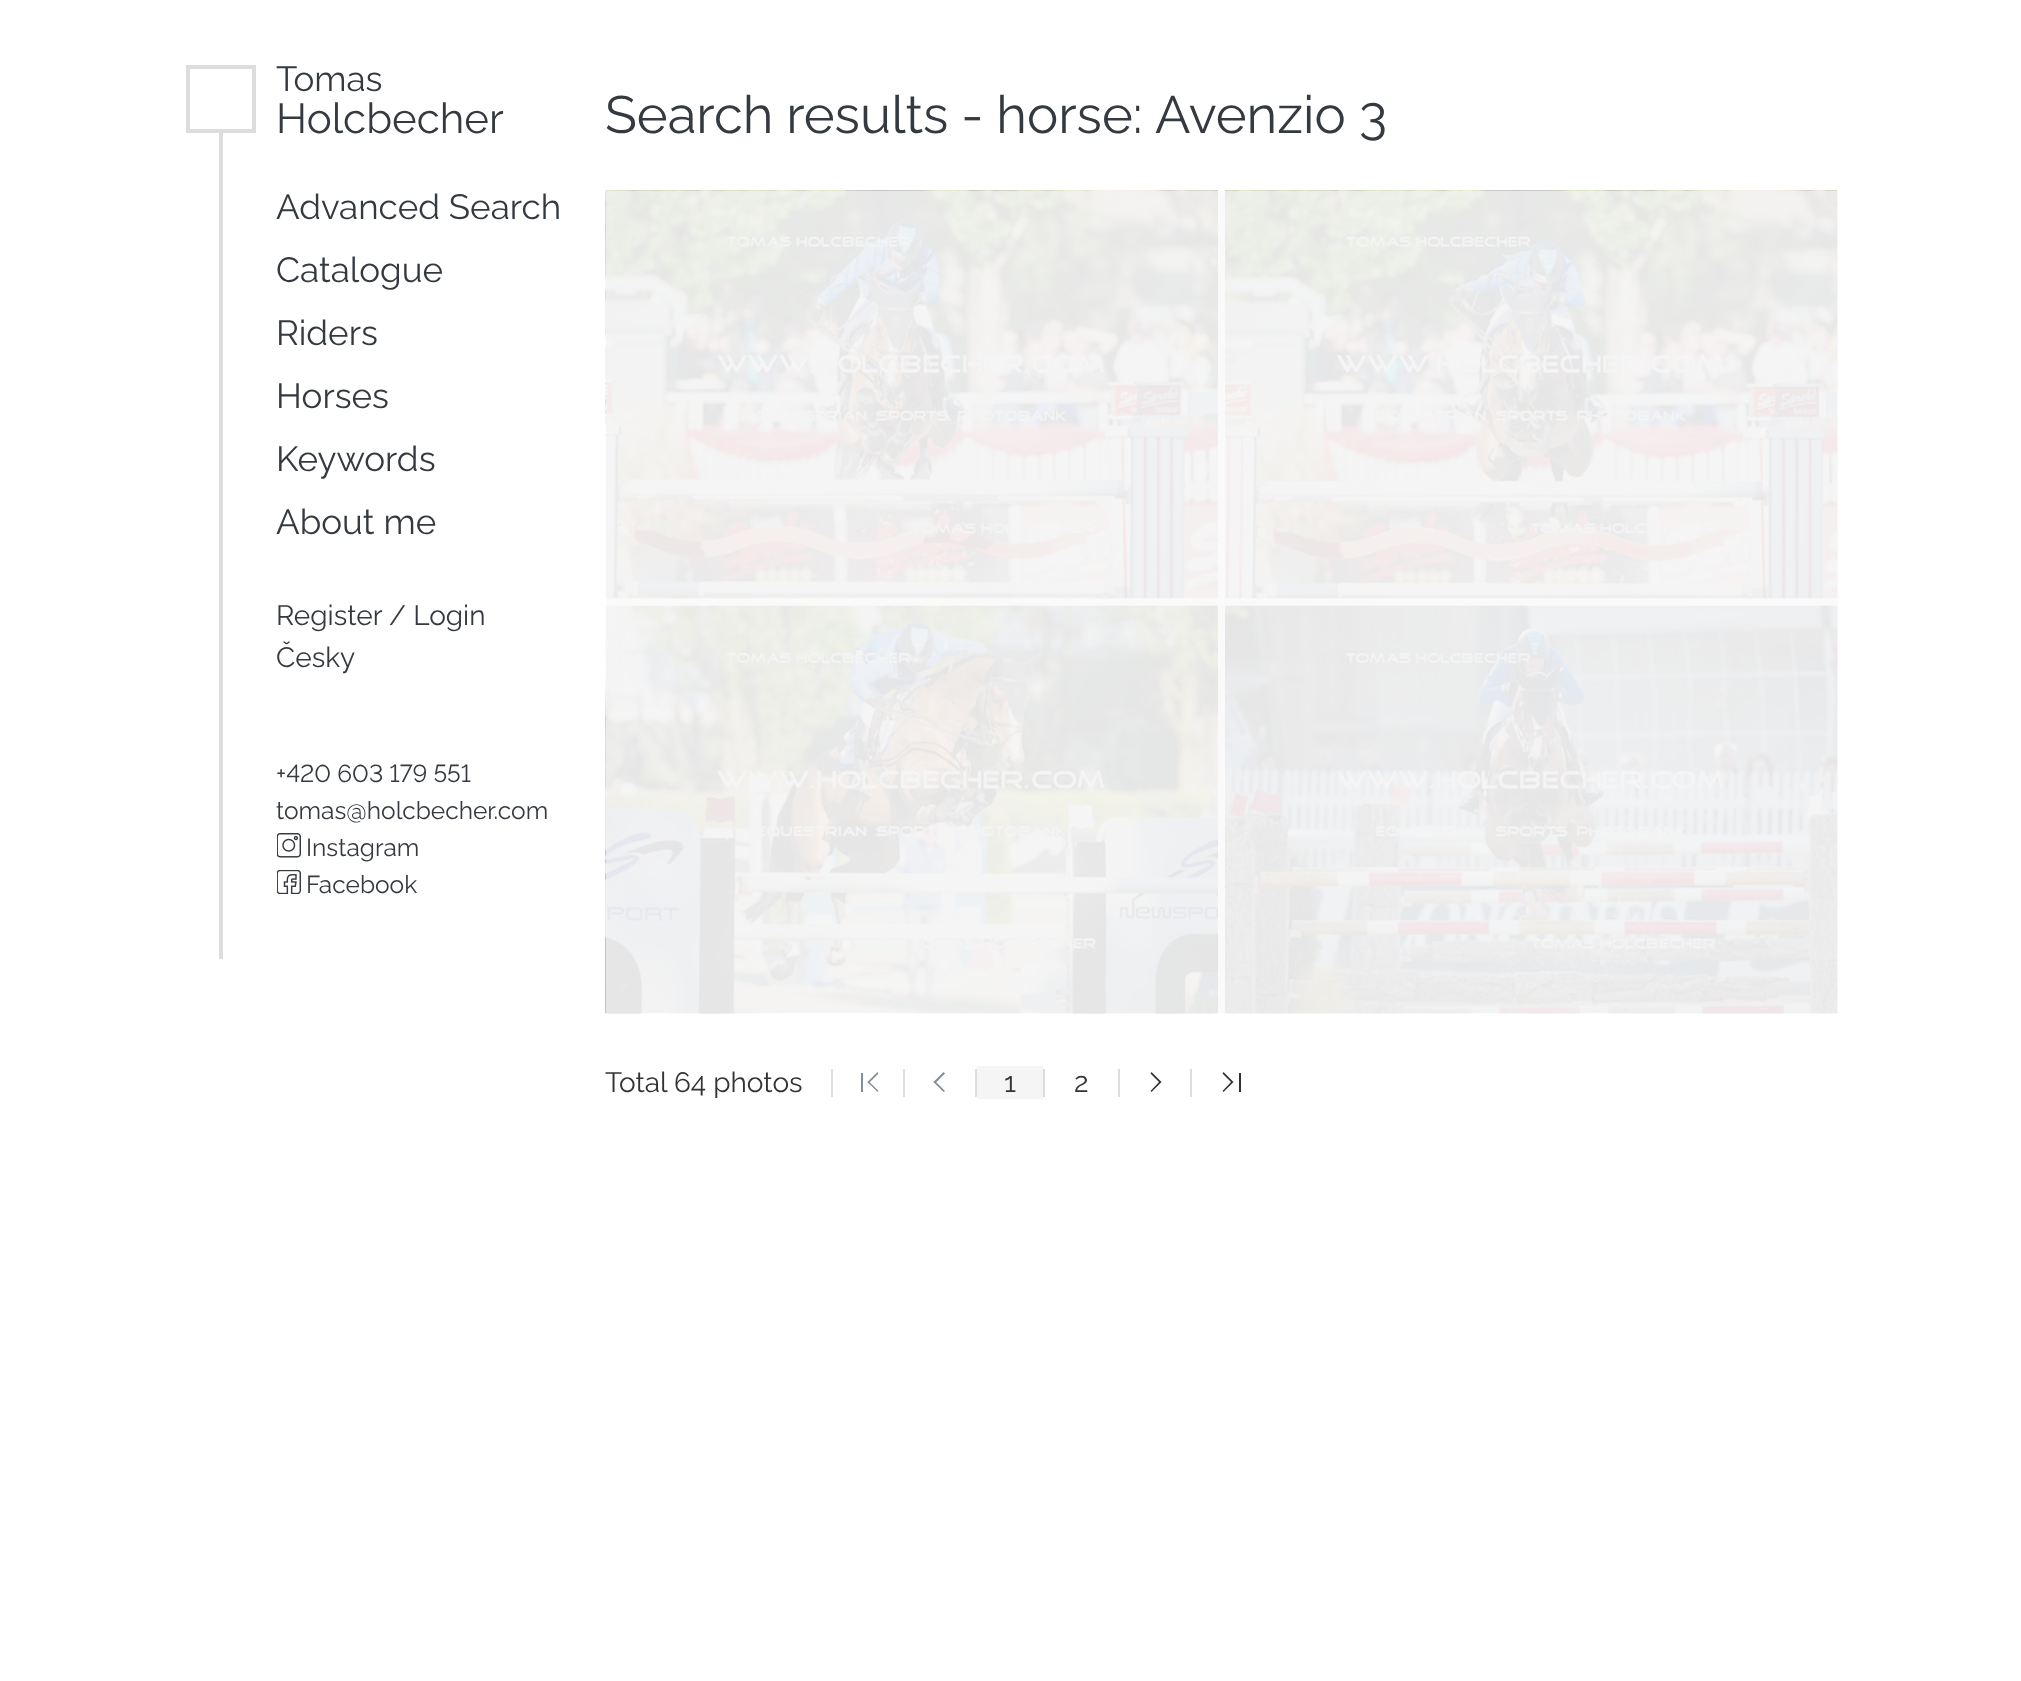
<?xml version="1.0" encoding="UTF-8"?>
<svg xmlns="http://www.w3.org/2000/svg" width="2021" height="1681">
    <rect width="100%" height="100%" fill="#FFFFFF"/>
    <rect x="606" y="191" width="1232" height="822" fill="#FAFAFA"/>
    <rect x="188" y="67" width="66" height="64" fill="none" stroke="#DDDDDD" stroke-width="4"/>
    <text x="276" y="91" font-family="Raleway" font-size="35" font-weight="100" fill="#343A40">Tomas</text>
    <text x="276" y="133" font-family="Raleway" font-size="42" font-weight="100" fill="#343A40">Holcbecher</text>
    <rect x="219" y="133" width="4" height="826" fill="#DDDDDD"/>
    <text font-family="Raleway" font-size="35" font-weight="100" fill="#343A40">
        <tspan x="276" y="219">Advanced Search</tspan>
        <tspan x="276" y="282">Catalogue</tspan>
        <tspan x="276" y="345">Riders</tspan>
        <tspan x="276" y="408">Horses</tspan>
        <tspan x="276" y="471">Keywords</tspan>
        <tspan x="276" y="534">About me</tspan>
    </text>
    <text font-family="Raleway" font-size="28" font-weight="100" fill="#343A40">
        <tspan x="276" y="625">Register / Login</tspan>
        <tspan x="276" y="667">Česky</tspan>
    </text>
    <text x="276" y="782" font-family="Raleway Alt" font-size="24.5" font-weight="100" fill="#343A40">+420 603 179 551</text>
    <text x="276" y="819" font-family="Raleway" font-size="24.5" font-weight="100" fill="#343A40">tomas@holcbecher.com</text>
    <image x="277" y="833" width="24" height="25" href="img_01.png"/>
    <text x="306" y="856" font-family="Raleway" font-size="24.5" font-weight="100" fill="#343A40">Instagram</text>
    <image x="277" y="870" width="24" height="24" href="img_02.png"/>
    <text x="306" y="893" font-family="Raleway" font-size="24.5" font-weight="100" fill="#343A40">Facebook</text>
    <text x="605" y="133" word-spacing="-0.5" font-family="Raleway" font-size="52.5" font-weight="100" fill="#343A40">Search results - horse:</text>
    <text x="1155" y="133" font-family="Raleway" font-size="52.5" font-weight="100" fill="#343A40">Avenzio 3</text>
    <image x="605" y="190" width="613" height="409" href="img_03.png"/>
    <image x="1225" y="190" width="613" height="409" href="img_04.png"/>
    <image x="605" y="605" width="613" height="409" href="img_05.png"/>
    <image x="1225" y="605" width="613" height="409" href="img_06.png"/>
    <rect x="831" y="1069" width="2" height="28" fill="#DDDDDD"/>
    <text x="605" y="1092" font-family="Raleway" font-size="28" font-weight="100" fill="#333333">Total 64 photos</text>
    <rect x="903" y="1069" width="2" height="28" fill="#DDDDDD"/>
    <rect x="861" y="1073" width="2" height="19" fill="#868E96"/>
    <path d="M 867.5 1082 L 877.5 1072 L 878.5 1073.5 L 868.5 1083.5 Z" fill="#868E96"/>
    <path d="M 867.5 1082 L 868.5 1081 L 878.5 1091 L 877.5 1092 Z" fill="#868E96"/>
    <rect x="975" y="1069" width="2" height="28" fill="#DDDDDD"/>
    <path d="M 933.5 1082 L 943.5 1072 L 945 1073.5 L 935 1083.5 Z" fill="#868E96"/>
    <path d="M 933.5 1082 L 935 1081 L 945 1091 L 943.5 1092 Z" fill="#868E96"/>
    <rect x="1043" y="1069" width="2" height="28" fill="#DDDDDD"/>
    <rect x="977" y="1066" width="66" height="33" fill="#F5F5F5"/>
    <text x="1004" y="1092" font-family="Raleway" font-size="28" font-weight="100" fill="#333333">1</text>
    <rect x="1118" y="1069" width="2" height="28" fill="#DDDDDD"/>
    <text x="1074" y="1092" font-family="Raleway" font-size="28" font-weight="100" fill="#333333">2</text>
    <rect x="1190" y="1069" width="2" height="28" fill="#DDDDDD"/>
    <path d="M 1151.5 1072 L 1161.5 1082 H 1159 L 1150.5 1073.5 Z M 1161.5 1082 L 1151.5 1092 L 1150.5 1091 L 1159 1082 Z" fill="#333333"/>
    <path d="M 1223.5 1072 L 1233.5 1082 H 1231 L 1222.5 1073.5 Z M 1233.5 1082 L 1223.5 1092 L 1222.5 1091 L 1231 1082 Z" fill="#333333"/>
    <rect x="1239" y="1073" width="2" height="19" fill="#333333"/>
</svg>
